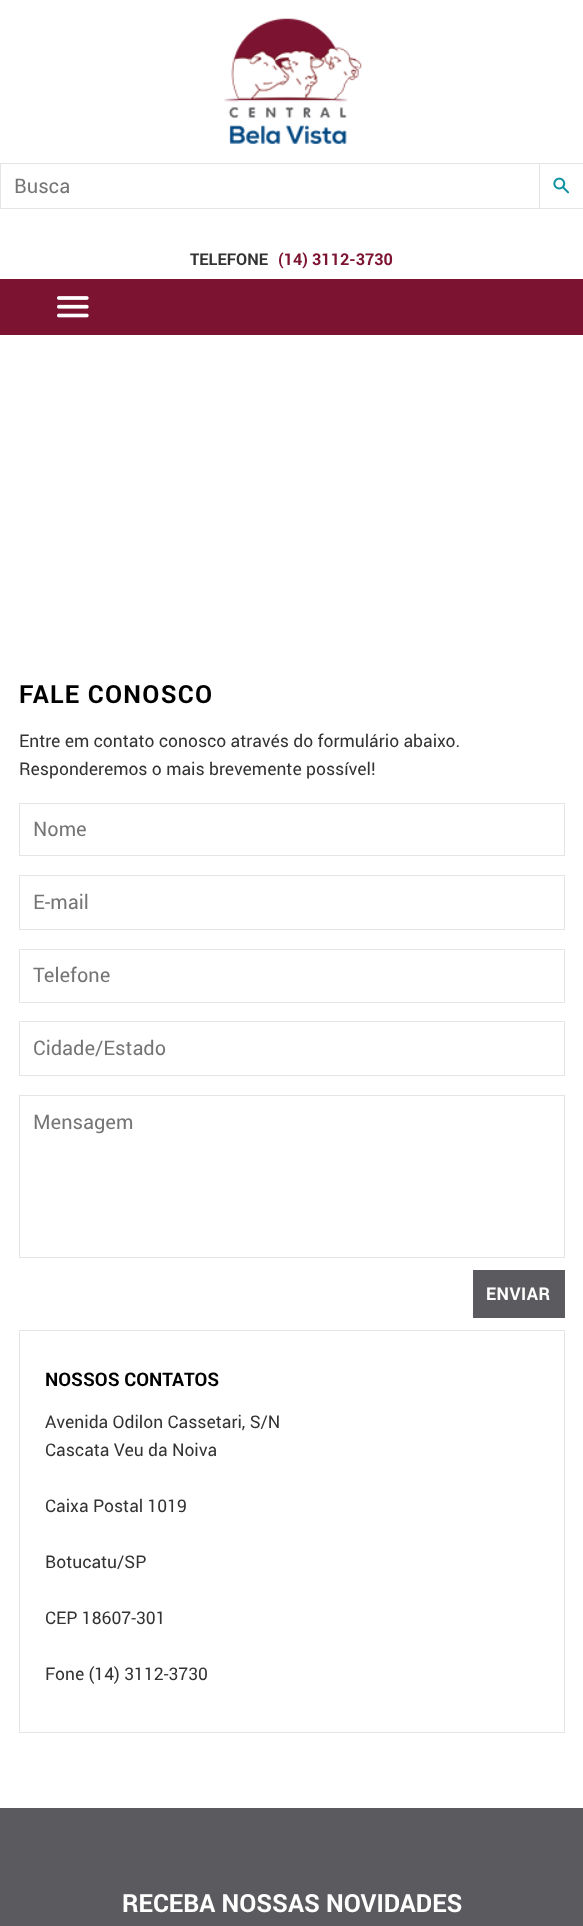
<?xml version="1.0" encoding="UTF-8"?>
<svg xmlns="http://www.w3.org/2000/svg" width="583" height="1926">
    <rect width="100%" height="100%" fill="#FFFFFF"/>
    <image x="224" y="18" width="138" height="126" href="img_01.png"/>
    <rect x="0.5" y="163.5" width="539" height="45" fill="none" stroke="#E5E5E5"/>
    <text x="14" y="193" font-family="Roboto" font-size="20" fill="#757575">Busca</text>
    <rect x="539.5" y="163.5" width="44" height="45" fill="none" stroke="#E5E5E5"/>
    <image x="553" y="177" width="17" height="17" href="img_02.png"/>
    <text x="190" y="265" font-family="Roboto" font-size="16.25" font-weight="700" fill="#333333">TELEFONE</text>
    <text x="278" y="265" font-family="Roboto" font-size="16.25" font-weight="700" fill="#7C1331">(14) 3112-3730</text>
    <rect x="0" y="279" width="583" height="56" fill="#7C1331"/>
    <image x="57" y="296" width="32" height="22" href="img_03.png"/>
    <text x="19" y="703" font-family="Roboto" font-size="25" font-weight="700" letter-spacing="1.25" fill="#000000">FALE CONOSCO</text>
    <text font-family="Roboto" font-size="17.5" fill="#333333">
        <tspan x="19" y="747">Entre em contato conosco através do formulário abaixo.</tspan>
        <tspan x="19" y="775">Responderemos o mais brevemente possível!</tspan>
    </text>
    <rect x="19.5" y="803.5" width="545" height="52" fill="none" stroke="#E5E5E5"/>
    <text x="33" y="836" font-family="Roboto" font-size="20" fill="#757575">Nome</text>
    <rect x="19.5" y="875.5" width="545" height="54" fill="none" stroke="#E5E5E5"/>
    <text x="33" y="909" font-family="Roboto" font-size="20" fill="#757575">E-mail</text>
    <rect x="19.5" y="949.5" width="545" height="53" fill="none" stroke="#E5E5E5"/>
    <text x="33" y="982" font-family="Roboto" font-size="20" fill="#757575">Telefone</text>
    <rect x="19.5" y="1021.5" width="545" height="54" fill="none" stroke="#E5E5E5"/>
    <text x="33" y="1055" font-family="Roboto" font-size="20" fill="#757575">Cidade/Estado</text>
    <rect x="19.5" y="1095.5" width="545" height="162" fill="none" stroke="#E5E5E5"/>
    <text x="33" y="1129" font-family="Roboto" font-size="20" fill="#757575">Mensagem</text>
    <rect x="473" y="1270" width="92" height="48" fill="#5B5B5F"/>
    <text x="486" y="1300" font-family="Roboto" font-size="17.5" font-weight="700" letter-spacing="0.5" fill="#FFFFFF">ENVIAR</text>
    <rect x="19.5" y="1330.5" width="545" height="402" fill="none" stroke="#E5E5E5"/>
    <text x="45" y="1386" font-family="Roboto" font-size="18.75" font-weight="700" fill="#000000">NOSSOS CONTATOS</text>
    <text font-family="Roboto" font-size="17.5" fill="#333333">
        <tspan x="45" y="1428">Avenida Odilon Cassetari, S/N</tspan>
        <tspan x="45" y="1456">Cascata Veu da Noiva</tspan>
    </text>
    <text x="45" y="1512" font-family="Roboto" font-size="17.5" fill="#333333">Caixa Postal 1019</text>
    <text x="45" y="1568" font-family="Roboto" font-size="17.5" fill="#333333">Botucatu/SP</text>
    <text x="45" y="1624" font-family="Roboto" font-size="17.5" fill="#333333">CEP 18607-301</text>
    <text x="45" y="1680" font-family="Roboto" font-size="17.5" fill="#333333">Fone (14) 3112-3730</text>
    <rect x="0" y="1808" width="583" height="118" fill="#5B5B5F"/>
    <text x="122" y="1912" font-family="Roboto" font-size="25" font-weight="700" fill="#FFFFFF">RECEBA NOSSAS NOVIDADES</text>
</svg>
